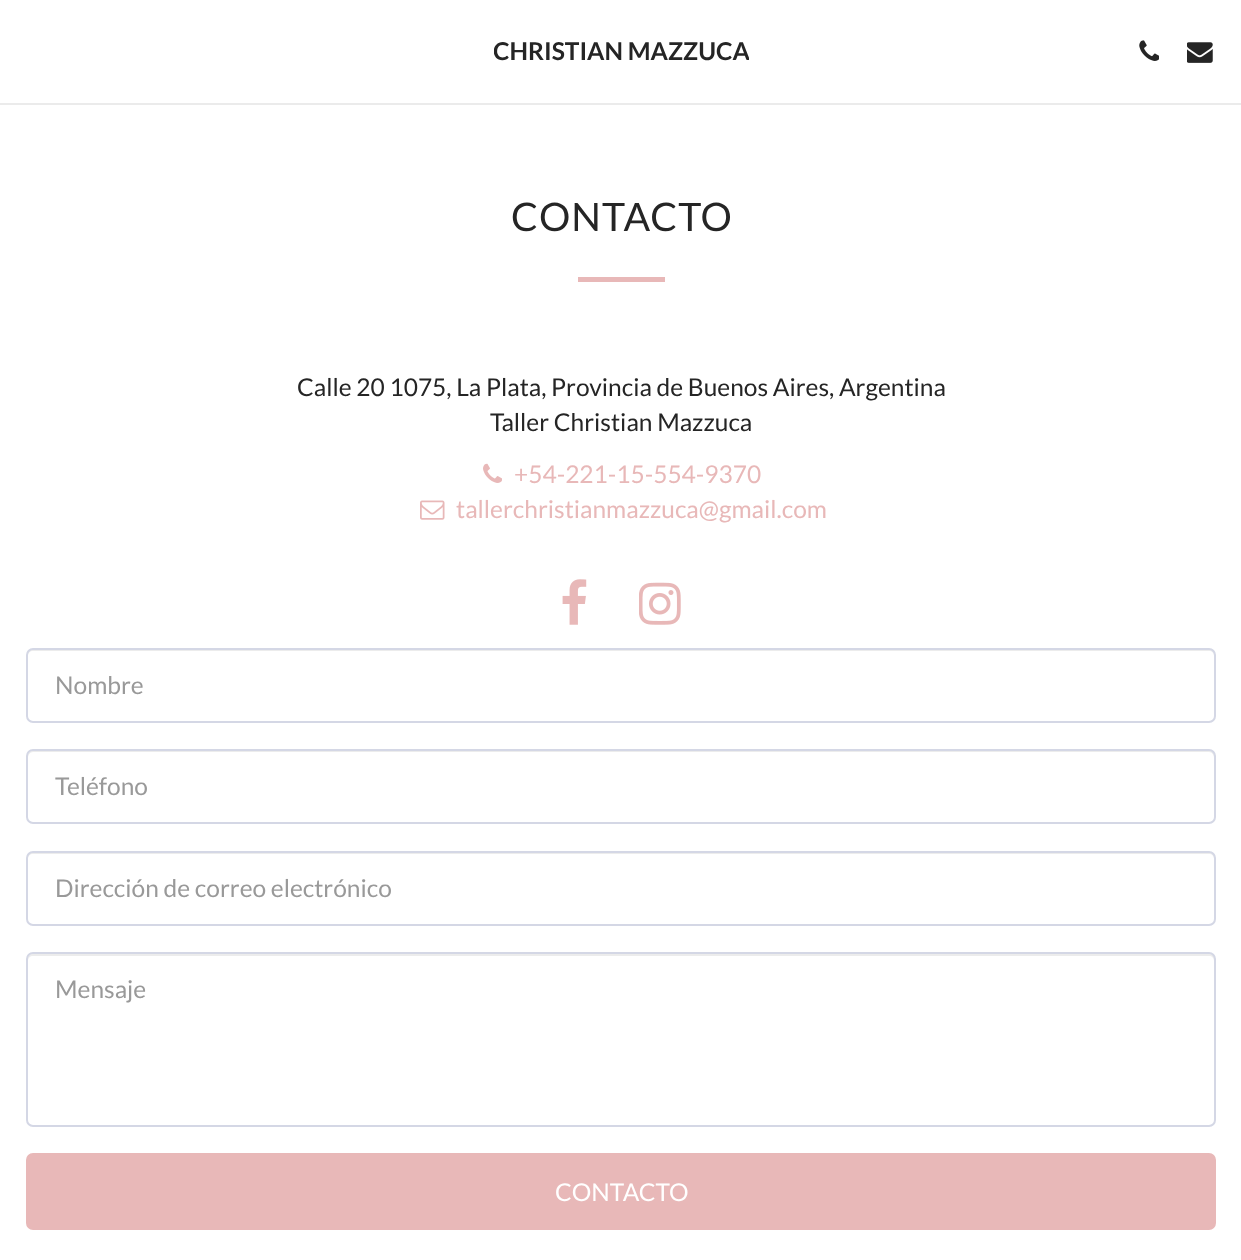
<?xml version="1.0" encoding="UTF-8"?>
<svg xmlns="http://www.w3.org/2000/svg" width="1241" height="1260">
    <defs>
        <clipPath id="clip1"><rect x="494" y="35" width="255" height="35"/></clipPath>
    </defs>
    <rect width="100%" height="100%" fill="#FFFFFF"/>
    <rect x="0" y="103" width="1241" height="2" fill="#EBEBEB"/>
    <g clip-path="url(#clip1)">
        <text x="493" y="60" font-family="Lato" font-size="24.5" font-weight="700" fill="#252525">CHRISTIAN MAZZUCA</text>
    </g>
    <image x="1139" y="40" width="20" height="21" href="img_01.png"/>
    <image x="1187" y="42" width="26" height="21" href="img_02.png"/>
    <text x="511" y="231" font-family="Lato" font-size="39.25" letter-spacing="1" fill="#252525">CONTACTO</text>
    <rect x="578" y="277" width="87" height="5" fill="#E8B8B8"/>
    <text x="297" y="396" font-family="Lato" font-size="24.5" fill="#252525">Calle 20 1075, La Plata, Provincia de Buenos Aires, Argentina</text>
    <text x="490" y="431" font-family="Lato" font-size="24.5" fill="#252525">Taller Christian Mazzuca</text>
    <image x="483" y="463" width="19" height="20" href="img_03.png"/>
    <text x="514" y="483" font-family="Lato" font-size="24.5" fill="#E8B8B8">+54-221-15-554-9370</text>
    <image x="420" y="500" width="25" height="20" href="img_04.png"/>
    <text x="456" y="518" font-family="Lato" font-size="24.5" fill="#E8B8B8">tallerchristianmazzuca@gmail.com</text>
    <image x="562" y="579" width="25" height="46" href="img_05.png"/>
    <image x="639" y="582" width="42" height="43" href="img_06.png"/>
    <path d="M 33 651 H 1209 C 1212 651 1214 653 1214 656 V 719 C 1215 718 1215 717 1215 716 V 654 C 1215 651 1213 649 1210 649 H 33 C 30 649 28 651 28 654 V 656 C 28 653 30 651 33 651 Z" fill="#ECECEC"/>
    <rect x="27" y="649" width="1188" height="73" rx="6" fill="none" stroke="#D4D7E5" stroke-width="2"/>
    <text x="55" y="694" font-family="Lato" font-size="24.5" fill="#999999">Nombre</text>
    <path d="M 33 752 H 1209 C 1212 752 1214 755 1214 758 V 819 L 1213 822 C 1214 821 1215 819 1215 818 V 756 C 1215 753 1213 751 1210 751 H 33 C 30 751 28 753 28 756 V 758 C 28 755 30 752 33 752 Z" fill="#ECECEC"/>
    <rect x="27" y="750" width="1188" height="73" rx="6" fill="none" stroke="#D4D7E5" stroke-width="2"/>
    <text x="55" y="795" font-family="Lato" font-size="24.5" fill="#999999">Teléfono</text>
    <path d="M 33 854 H 1209 C 1212 854 1214 856 1214 859 V 920 V 923 C 1214 922 1215 920 1215 919 V 857 C 1215 854 1213 852 1210 852 H 33 C 30 852 28 854 28 857 V 859 C 28 856 30 854 33 854 Z" fill="#ECECEC"/>
    <rect x="27" y="852" width="1188" height="73" rx="6" fill="none" stroke="#D4D7E5" stroke-width="2"/>
    <text x="55" y="897" font-family="Lato" font-size="24.5" fill="#999999">Dirección de correo electrónico</text>
    <path d="M 33 956 H 1209 C 1212 956 1214 958 1214 961 V 1123 C 1215 1122 1215 1121 1215 1120 V 959 C 1215 956 1213 954 1210 954 H 33 C 30 954 28 956 28 959 V 961 C 28 958 30 956 33 956 Z" fill="#ECECEC"/>
    <rect x="27" y="953" width="1188" height="173" rx="6" fill="none" stroke="#D4D7E5" stroke-width="2"/>
    <text x="55" y="998" font-family="Lato" font-size="24.5" fill="#999999">Mensaje</text>
    <rect x="27" y="1154" width="1188" height="75" rx="6" fill="#E8B8B8" stroke="#E8B8B8" stroke-width="2"/>
    <text x="555" y="1201" font-family="Lato" font-size="24.5" fill="#FFFFFF">CONTACTO</text>
</svg>
